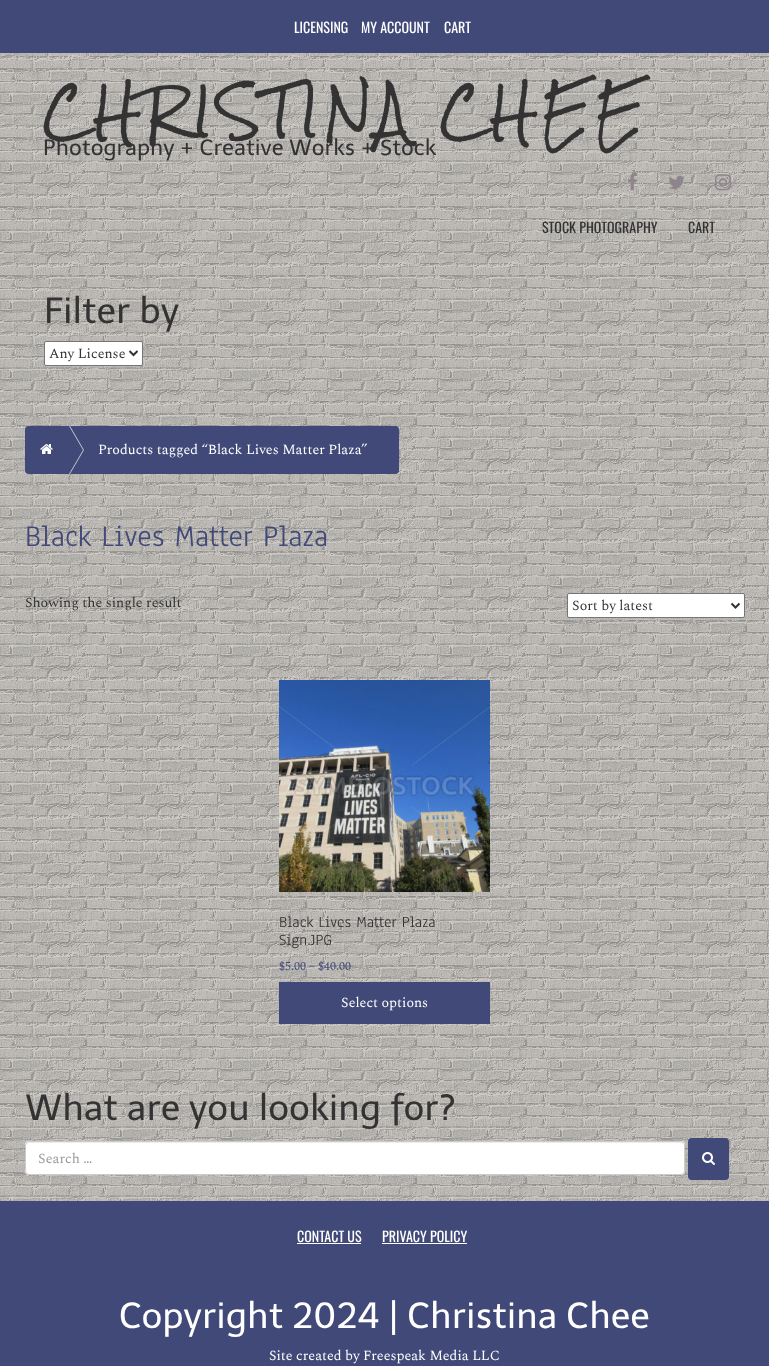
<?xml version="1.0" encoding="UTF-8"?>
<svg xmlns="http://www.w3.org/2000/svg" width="769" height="1366">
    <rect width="100%" height="100%" fill="#F9F5EF"/>
    <image x="0" y="53" width="769" height="1148" href="img_01.png"/>
    <rect x="0" y="0" width="769" height="53" fill="#414978"/>
    <text x="294" y="33" font-family="Oswald" font-size="14" fill="#FFFFFF">LICENSING</text>
    <text x="361" y="33" font-family="Oswald" font-size="14" fill="#FFFFFF">MY ACCOUNT</text>
    <text x="444" y="33" font-family="Oswald" font-size="14" fill="#FFFFFF">CART</text>
    <text x="43" y="132" font-family="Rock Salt" font-size="51" letter-spacing="5" fill="#333333">CHRISTINA CHEE</text>
    <text x="43" y="155" font-family="Telex" font-size="22" fill="#333333">Photography + Creative Works + Stock</text>
    <image x="628" y="173" width="9" height="18" href="img_02.png"/>
    <image x="669" y="175" width="16" height="14" href="img_03.png"/>
    <image x="715" y="174" width="16" height="17" href="img_04.png"/>
    <text x="542" y="233" font-family="Oswald" font-size="14" fill="#333333">STOCK PHOTOGRAPHY</text>
    <text x="688" y="233" font-family="Oswald" font-size="14" fill="#333333">CART</text>
    <text x="44" y="323" font-family="Telex" font-size="36" fill="#333333">Filter by</text>
    <rect x="44.5" y="341.5" width="98" height="24" rx="1.5" fill="#FFFFFF" stroke="#767676"/>
    <path d="M 129.5 351 L 133.5 355 L 137.5 351" fill="none" stroke="#333333" stroke-width="2"/>
    <text x="49" y="358" font-family="Spectral" font-size="14" fill="#333333">Any License</text>
    <rect x="25" y="426" width="374" height="48" rx="4" fill="#414978"/>
    <path d="M 70 426 L 84 450 L 70 474 H 54 V 426 Z" fill="#C5C6CB"/>
    <path d="M 69 426 L 83 450 L 69 474 H 53 V 426 Z" fill="#414978"/>
    <image x="40" y="444" width="13" height="10" href="img_05.png"/>
    <text x="98" y="454" font-family="Spectral" font-size="14" fill="#FFFFFF">Products tagged “Black Lives Matter Plaza”</text>
    <path d="M 392 474 V 426 C 400 426 399 429 399 437 V 463 C 399 471 400 474 392 474 Z" fill="#414978"/>
    <text x="25" y="546" font-family="Anaheim" font-size="31" fill="#414978">Black Lives Matter Plaza</text>
    <text x="25" y="607" font-family="Spectral" font-size="14" fill="#333333">Showing the single result</text>
    <rect x="567.5" y="593.5" width="177" height="24" rx="1.5" fill="#FFFFFF" stroke="#767676"/>
    <path d="M 731.5 603.5 L 735.5 607.5 L 739.5 603.5" fill="none" stroke="#333333" stroke-width="2"/>
    <text x="572" y="610" font-family="Spectral" font-size="14" fill="#333333">Sort by latest</text>
    <image x="279" y="680" width="211" height="212" href="img_06.png"/>
    <text font-family="Anaheim" font-size="16" fill="#333333">
        <tspan x="279" y="927">Black Lives Matter Plaza</tspan>
        <tspan x="279" y="945">Sign.JPG</tspan>
    </text>
    <text x="279" y="970" font-family="Spectral" font-size="12" fill="#414978">$5.00 – $40.00</text>
    <rect x="279" y="982" width="211" height="42" fill="#414978"/>
    <text x="341" y="1007" font-family="Spectral" font-size="14" fill="#FFFFFF">Select options</text>
    <text x="25" y="1120" font-family="Telex" font-size="36" fill="#333333">What are you looking for?</text>
    <rect x="25" y="1141" width="660" height="34" rx="4" fill="#FFFFFF"/>
    <path d="M 29 1143 H 681 C 683 1143 684 1144 684 1146 V 1145 C 684 1143 683 1142 681 1142 H 29 C 27 1142 26 1143 26 1145 V 1146 C 26 1144 27 1143 29 1143 Z" fill="#ECECEC"/>
    <rect x="25.5" y="1141.5" width="659" height="33" rx="3.5" fill="none" stroke="#CCCCCC"/>
    <text x="38" y="1163" font-family="Spectral" font-size="14" fill="#999999">Search …</text>
    <rect x="688" y="1138" width="41" height="42" rx="4" fill="#414978"/>
    <image x="702" y="1152" width="13" height="13" href="img_07.png"/>
    <rect x="0" y="1201" width="769" height="165" fill="#414978"/>
    <text x="297" y="1242" font-family="Oswald" font-size="14" fill="#FFFFFF">CONTACT US</text>
    <rect x="297" y="1243" width="64" height="1" fill="#FFFFFF"/>
    <text x="382" y="1242" font-family="Oswald" font-size="14" fill="#FFFFFF">PRIVACY POLICY</text>
    <rect x="382" y="1243" width="85" height="1" fill="#FFFFFF"/>
    <text x="119" y="1328" font-family="Telex" font-size="36" fill="#FFFFFF">Copyright 2024 | Christina Chee</text>
    <text x="269" y="1360" font-family="Spectral" font-size="14" fill="#FFFFFF">Site created by Freespeak Media LLC</text>
</svg>
